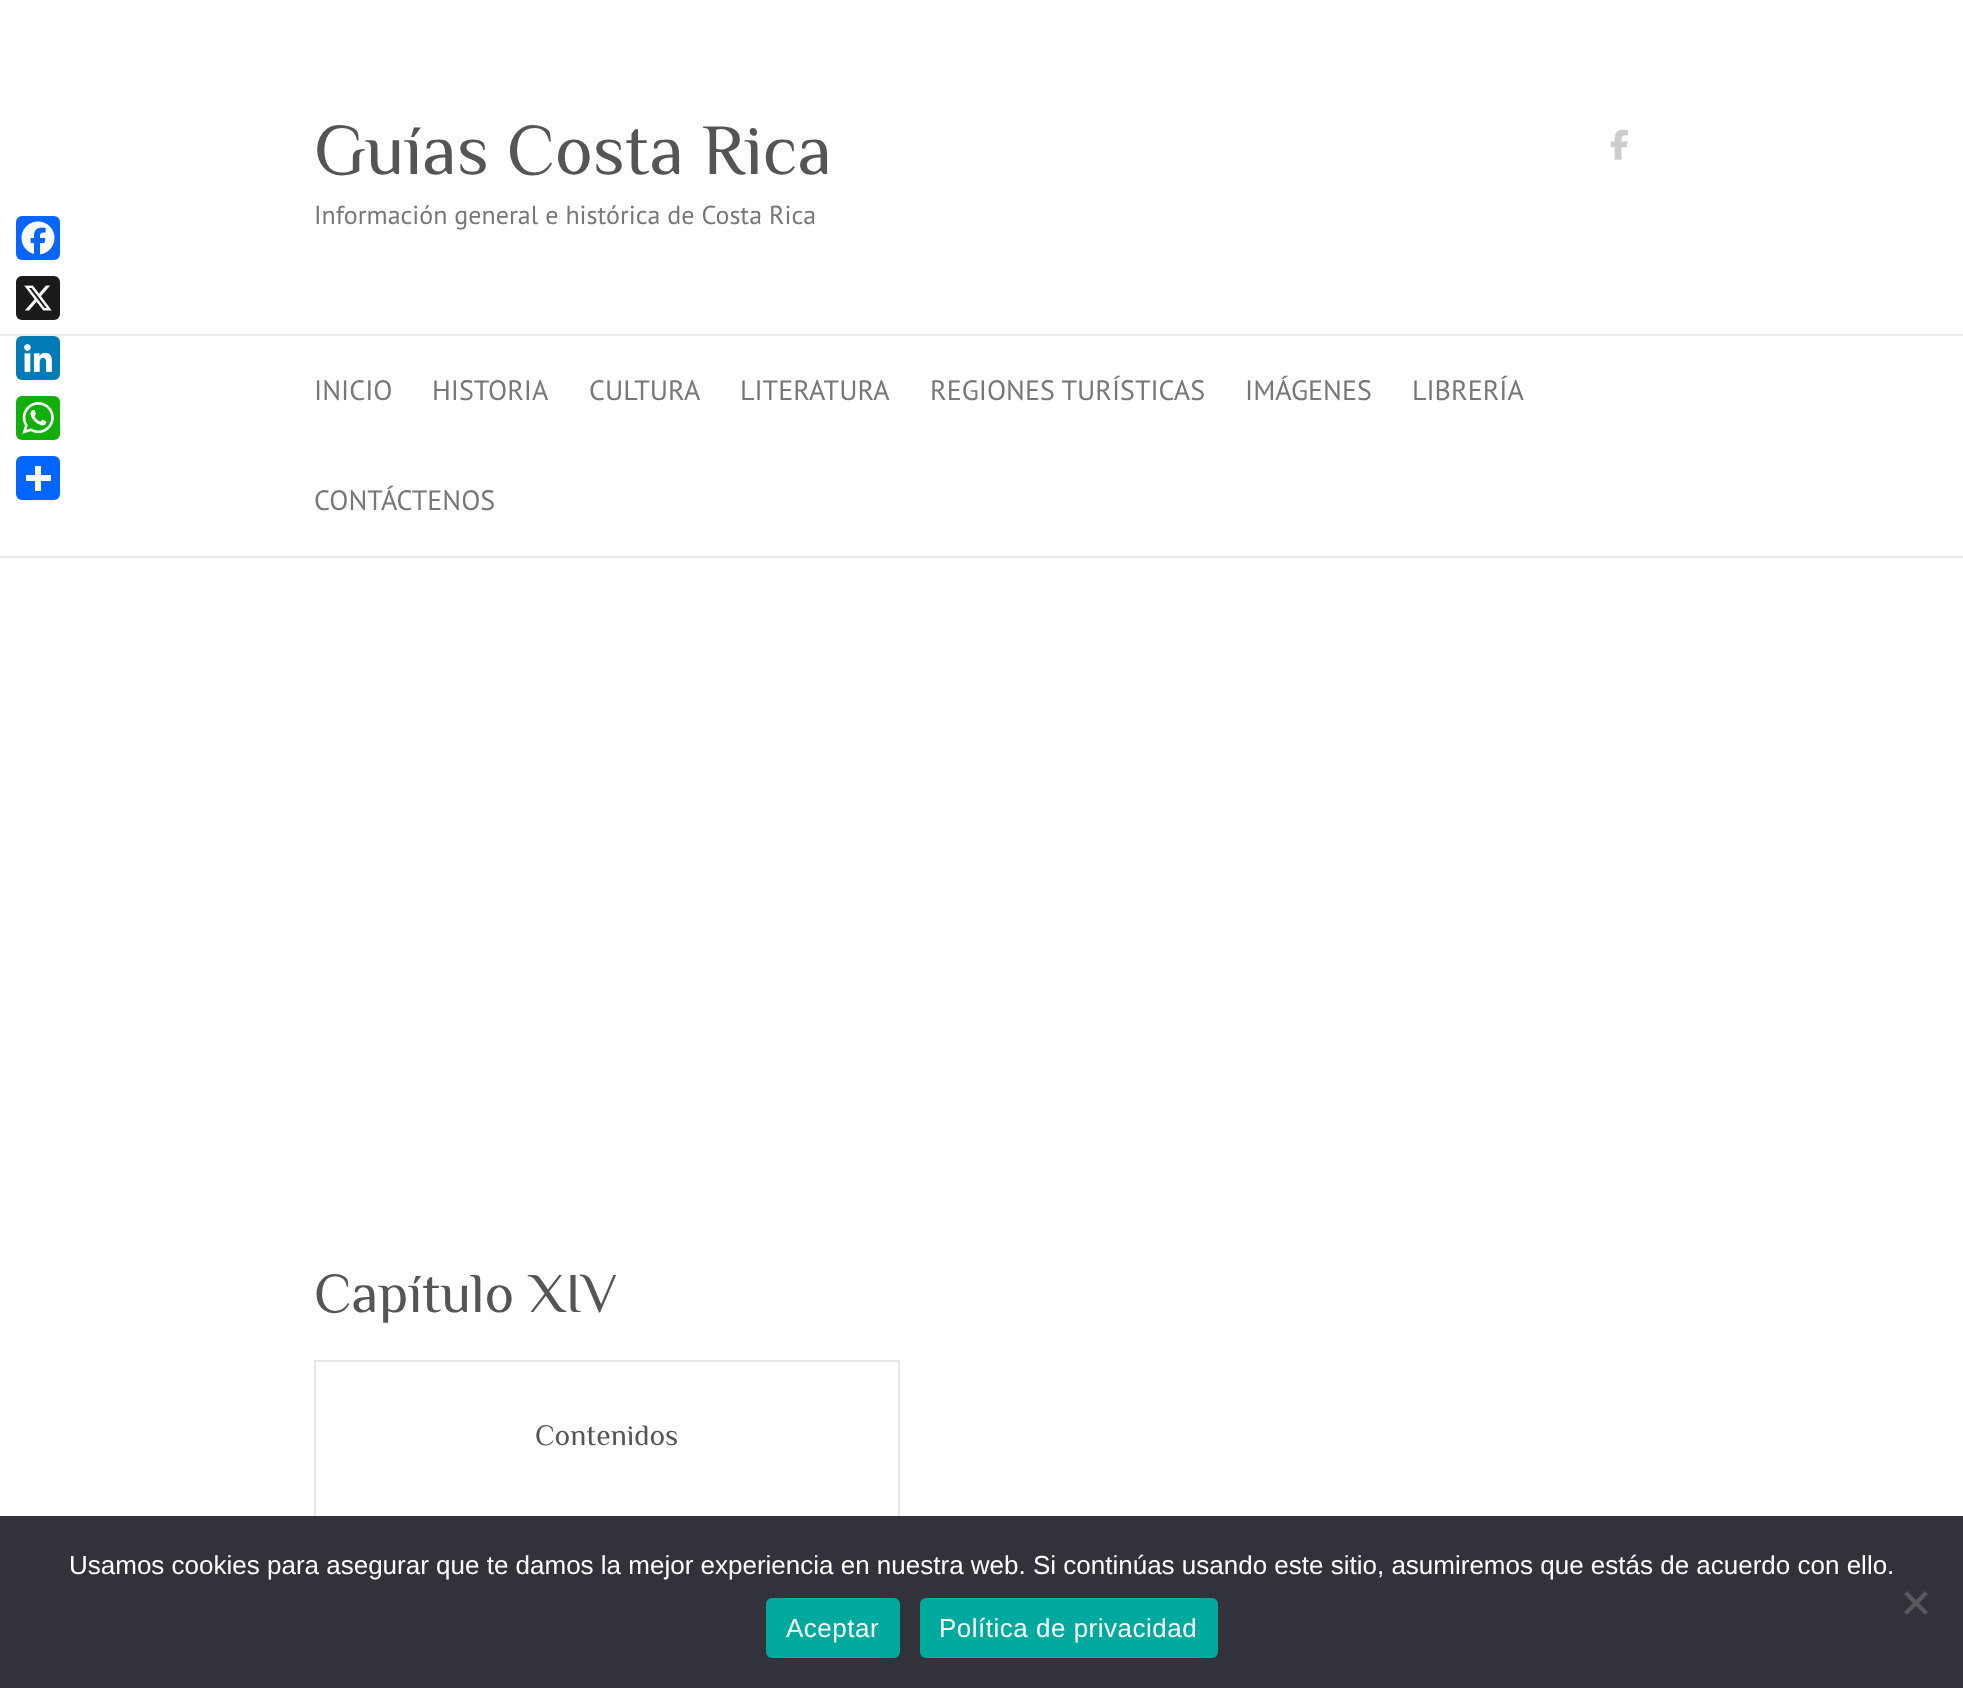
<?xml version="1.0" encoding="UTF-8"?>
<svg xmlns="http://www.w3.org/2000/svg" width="1963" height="1688">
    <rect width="100%" height="100%" fill="#FFFFFF"/>
    <rect x="16" y="216" width="44" height="44" rx="6" fill="#0866FF"/>
    <image x="21" y="221" width="34" height="34" href="img_01.png"/>
    <rect x="16" y="276" width="44" height="44" rx="6" fill="#1A1A1A"/>
    <image x="24" y="285" width="28" height="26" href="img_02.png"/>
    <rect x="16" y="336" width="44" height="44" rx="6" fill="#007BB5"/>
    <image x="24" y="344" width="28" height="28" href="img_03.png"/>
    <rect x="16" y="396" width="44" height="44" rx="6" fill="#12AF0A"/>
    <image x="22" y="402" width="32" height="32" href="img_04.png"/>
    <rect x="16" y="456" width="44" height="44" rx="6" fill="#0166FF"/>
    <rect x="35" y="466" width="6" height="25" fill="#FFFFFF"/>
    <rect x="26" y="475" width="25" height="6" fill="#FFFFFF"/>
    <text x="314" y="174" font-family="Philosopher" font-size="72" fill="#555555">Guías Costa Rica</text>
    <text x="314" y="224" font-family="PT Sans" font-size="26" fill="#777777">Información general e histórica de Costa Rica</text>
    <image x="1610" y="129" width="18" height="31" href="img_05.png"/>
    <rect x="0" y="334" width="1963" height="2" fill="#EAEAEA"/>
    <rect x="0" y="556" width="1963" height="2" fill="#EAEAEA"/>
    <text x="314" y="400" font-family="PT Sans" font-size="28" fill="#777777">INICIO</text>
    <text x="432" y="400" font-family="PT Sans" font-size="28" fill="#777777">HISTORIA</text>
    <text x="589" y="400" font-family="PT Sans" font-size="28" fill="#777777">CULTURA</text>
    <text x="740" y="400" font-family="PT Sans" font-size="28" fill="#777777">LITERATURA</text>
    <text x="930" y="400" font-family="PT Sans" font-size="28" fill="#777777">REGIONES TURÍSTICAS</text>
    <text x="1245" y="400" font-family="PT Sans" font-size="28" fill="#777777">IMÁGENES</text>
    <text x="1412" y="400" font-family="PT Sans" font-size="28" fill="#777777">LIBRERÍA</text>
    <text x="314" y="510" font-family="PT Sans" font-size="28" fill="#777777">CONTÁCTENOS</text>
    <text x="314" y="1312" font-family="Philosopher" font-size="56" fill="#555555">Capítulo XIV</text>
    <rect x="315" y="1361" width="584" height="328" fill="none" stroke="#E6E6E6" stroke-width="2"/>
    <text x="535" y="1445" font-family="Philosopher" font-size="29.5" fill="#555555">Contenidos</text>
    <rect x="0" y="1516" width="1963" height="172" fill="#32323A"/>
    <text x="69" y="1574" font-family="Liberation Sans" font-size="26" fill="#FFFFFF">Usamos cookies para asegurar que te damos la mejor experiencia en nuestra web. Si continúas usando este sitio, asumiremos que estás de acuerdo con ello.</text>
    <path d="M 1925 1591 L 1928 1594 L 1907 1615 L 1904 1612 Z" fill="#59595D"/>
    <path d="M 1904 1594 L 1907 1591 L 1928 1612 L 1925 1615 Z" fill="#59595D"/>
    <rect x="766" y="1598" width="134" height="60" rx="6" fill="#00A99D"/>
    <text x="786" y="1637" font-family="Liberation Sans" font-size="26" letter-spacing="0.5" fill="#FFFFFF">Aceptar</text>
    <rect x="920" y="1598" width="298" height="60" rx="6" fill="#00A99D"/>
    <text x="939" y="1637" font-family="Liberation Sans" font-size="26" letter-spacing="0.5" fill="#FFFFFF">Política de privacidad</text>
</svg>
